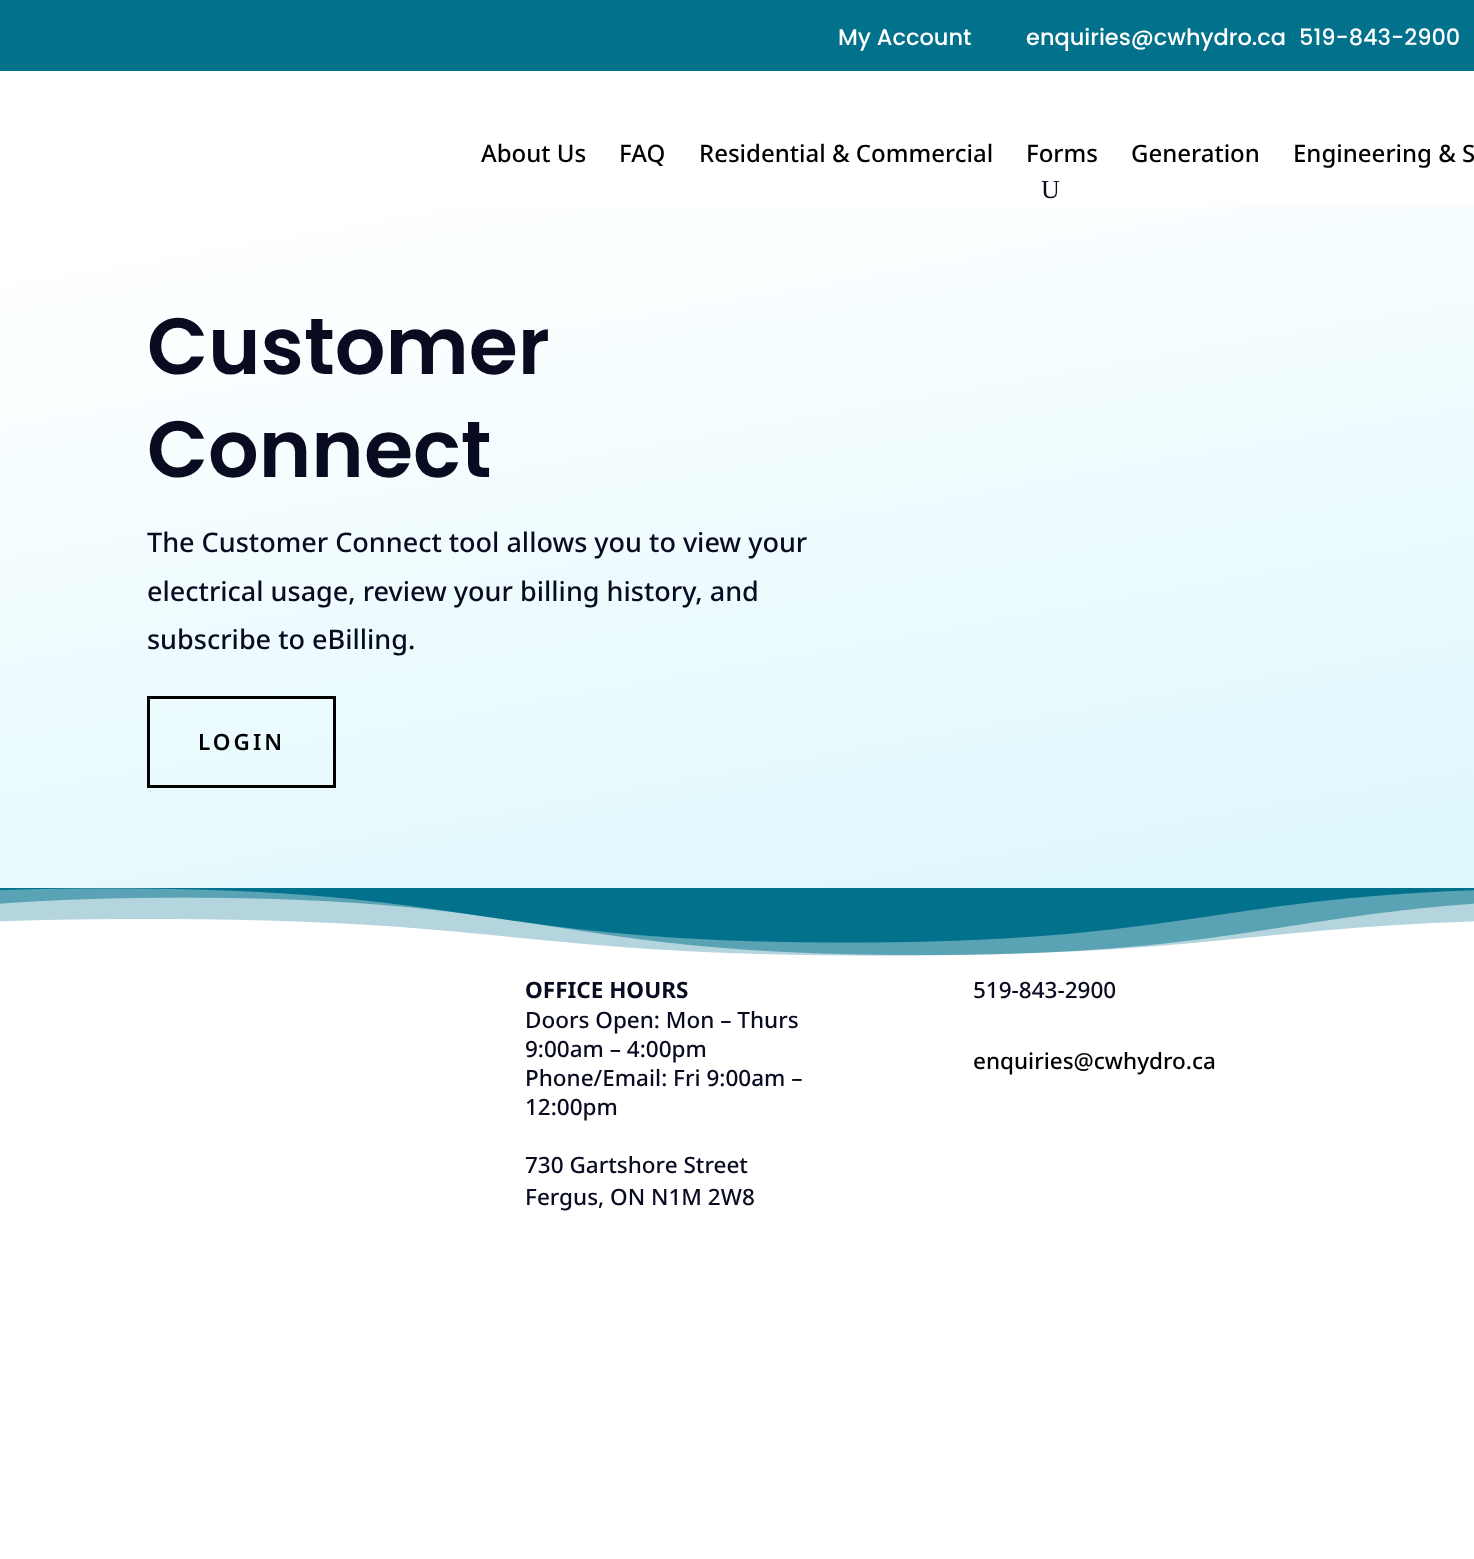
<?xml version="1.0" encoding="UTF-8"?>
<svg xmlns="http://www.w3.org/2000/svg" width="1474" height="1559">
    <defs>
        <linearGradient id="g1" gradientUnits="userSpaceOnUse" x1="657" y1="90" x2="818" y2="1004"><stop offset="0" stop-color="#FFFFFF"/><stop offset="0.11" stop-color="#FDFFFF"/><stop offset="1" stop-color="#DCF7FD"/></linearGradient>
    </defs>
    <rect width="100%" height="100%" fill="#FFFFFF"/>
    <rect x="0" y="0" width="1474" height="71" fill="#02718C"/>
    <text x="838" y="45" font-family="Poppins" font-size="22.5" font-weight="500" fill="#FFFFFF">My Account</text>
    <text x="1026" y="45" font-family="Poppins" font-size="22.5" font-weight="500" fill="#FFFFFF">enquiries@cwhydro.ca</text>
    <text x="1299" y="45" font-family="Poppins" font-size="22.5" font-weight="500" fill="#FFFFFF">519-843-2900</text>
    <text x="481" y="162" font-family="Noto Sans" font-size="24" font-weight="500" fill="#000000">About Us</text>
    <text x="619" y="162" font-family="Noto Sans" font-size="24" font-weight="500" fill="#000000">FAQ</text>
    <text x="699" y="162" font-family="Noto Sans" font-size="24" font-weight="500" fill="#000000">Residential &amp; Commercial</text>
    <text x="1026" y="162" font-family="Noto Sans" font-size="24" font-weight="500" fill="#000000">Forms</text>
    <text x="1131" y="162" font-family="Noto Sans" font-size="24" font-weight="500" fill="#000000">Generation</text>
    <text x="1293" y="162" font-family="Noto Sans" font-size="24" font-weight="500" fill="#000000">Engineering &amp; S</text>
    <text x="1041" y="198" font-family="Liberation Serif" font-size="26" fill="#090C20">U</text>
    <rect x="0" y="206" width="1474" height="682" fill="url(#g1)"/>
    <text font-family="Poppins" font-size="79.5" font-weight="600" fill="#090C20">
        <tspan x="147" y="374">Customer</tspan>
        <tspan x="147" y="477">Connect</tspan>
    </text>
    <text font-family="Noto Sans" font-size="27" font-weight="500" fill="#090C20">
        <tspan x="147" y="552">The Customer Connect tool allows you to view your</tspan>
        <tspan x="147" y="601">electrical usage, review your billing history, and</tspan>
        <tspan x="147" y="649">subscribe to eBilling.</tspan>
    </text>
    <rect x="148.5" y="697.5" width="186" height="89" fill="none" stroke="#000000" stroke-width="3"/>
    <text x="198" y="750" font-family="Noto Sans" font-size="22.5" font-weight="600" letter-spacing="3" fill="#000000">LOGIN</text>
    <image x="0" y="888" width="1474" height="68" href="img_01.png"/>
    <text x="525" y="998" font-family="Noto Sans" font-size="22.5" font-weight="700" fill="#090C20">OFFICE HOURS</text>
    <text font-family="Noto Sans" font-size="22.5" font-weight="500" fill="#090C20">
        <tspan x="525" y="1028">Doors Open: Mon – Thurs</tspan>
        <tspan x="525" y="1057">9:00am – 4:00pm</tspan>
        <tspan x="525" y="1086">Phone/Email: Fri 9:00am –</tspan>
        <tspan x="525" y="1115">12:00pm</tspan>
    </text>
    <text font-family="Noto Sans" font-size="22.5" font-weight="500" fill="#090C20">
        <tspan x="525" y="1173">730 Gartshore Street</tspan>
        <tspan x="525" y="1205">Fergus, ON N1M 2W8</tspan>
    </text>
    <text x="973" y="998" font-family="Noto Sans" font-size="22.5" font-weight="500" fill="#090C20">519-843-2900</text>
    <text x="973" y="1069" font-family="Noto Sans" font-size="22.5" font-weight="500" fill="#000000">enquiries@cwhydro.ca</text>
</svg>
